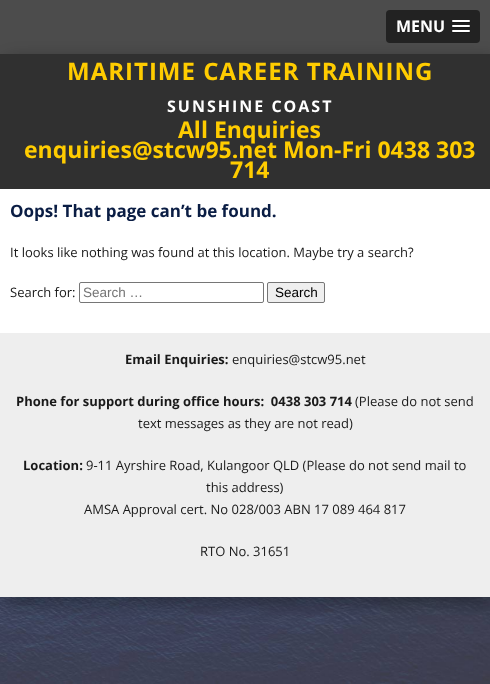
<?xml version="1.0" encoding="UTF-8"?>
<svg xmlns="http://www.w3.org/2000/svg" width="490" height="684">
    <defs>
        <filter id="blur1" x="-50%" y="-200%" width="200%" height="500%"><feGaussianBlur stdDeviation="9.5"/></filter>
    </defs>
    <rect width="100%" height="100%" fill="#FFFFFF"/>
    <image x="0" y="597" width="490" height="87" href="img_01.png"/>
    <rect x="0" y="0" width="490" height="54" fill="#4C4C4C"/>
    <rect x="6" y="60" width="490" height="543" fill="#000000" fill-opacity="0.37" filter="url(#blur1)"/>
    <rect x="386" y="10" width="94" height="33" rx="4" fill="#222222"/>
    <text x="396" y="32" font-family="Open Sans" font-size="16" font-weight="700" fill="#FFFFFF">MENU</text>
    <path d="M 452 21.5 C 451 23.5 455.5 23 455.5 23 H 466.5 C 466.5 23 471 23.5 470 21.5 C 469 22.5 462.5 22 461 22 C 459.5 22 453 22.5 452 21.5 Z" fill="#1A1A1A"/>
    <rect x="452" y="20" width="18" height="2" rx="1" fill="#FFFFFF"/>
    <path d="M 452 26.5 C 451 28.5 455.5 28 455.5 28 H 466.5 C 466.5 28 471 28.5 470 26.5 C 469 27.5 462.5 27 461 27 C 459.5 27 453 27.5 452 26.5 Z" fill="#1A1A1A"/>
    <rect x="452" y="25" width="18" height="2" rx="1" fill="#FFFFFF"/>
    <path d="M 452 31.5 C 451 33.5 455.5 33 455.5 33 H 466.5 C 466.5 33 471 33.5 470 31.5 C 469 32.5 462.5 32 461 32 C 459.5 32 453 32.5 452 31.5 Z" fill="#1A1A1A"/>
    <rect x="452" y="30" width="18" height="2" rx="1" fill="#FFFFFF"/>
    <rect x="0" y="189" width="490" height="144" fill="#FFFFFF"/>
    <rect x="0" y="54" width="490" height="135" fill="#303030"/>
    <text x="67" y="80" font-family="Open Sans" font-size="24" font-weight="700" letter-spacing="1" fill="#FFCC00">MARITIME CAREER TRAINING</text>
    <text x="167" y="112" font-family="Open Sans" font-size="16" font-weight="700" letter-spacing="2" fill="#FFFFFF">SUNSHINE COAST</text>
    <text x="178" y="138" font-family="Open Sans" font-size="23" font-weight="700" fill="#FFCC00">All Enquiries</text>
    <text x="24" y="158" font-family="Open Sans" font-size="23" font-weight="700" fill="#FFCC00">enquiries@stcw95.net Mon-Fri 0438 303</text>
    <text x="230" y="178" font-family="Open Sans" font-size="23" font-weight="700" fill="#FFCC00">714</text>
    <text x="10" y="217" font-family="Open Sans" font-size="17" font-weight="700" fill="#0A1D44">Oops! That page can’t be found.</text>
    <text x="10" y="257" font-family="Open Sans" font-size="13" fill="#191919">It looks like nothing was found at this location. Maybe try a search?</text>
    <text x="10" y="297" font-family="Open Sans" font-size="13" fill="#191919">Search for:</text>
    <rect x="79.5" y="282.5" width="184" height="20" rx="1.5" fill="none" stroke="#767676"/>
    <text x="83" y="297" font-family="Liberation Sans" font-size="13.5" fill="#757575">Search …</text>
    <rect x="267.5" y="282.5" width="57" height="20" rx="1.5" fill="#EFEFEF" stroke="#767676"/>
    <text x="275" y="297" font-family="Liberation Sans" font-size="13.5" fill="#000000">Search</text>
    <rect x="0" y="333" width="490" height="264" fill="#EEEEEE"/>
    <text x="125" y="364" font-family="Open Sans" font-size="13" font-weight="700" fill="#191919">Email Enquiries:</text>
    <text x="232" y="364" font-family="Open Sans" font-size="13" fill="#191919">enquiries@stcw95.net</text>
    <text x="16" y="406" font-family="Open Sans" font-size="13" font-weight="700" fill="#191919" xml:space="preserve">Phone for support during office hours:  0438 303 714</text>
    <text x="355" y="406" font-family="Open Sans" font-size="13" fill="#191919">(Please do not send</text>
    <text x="138" y="428" font-family="Open Sans" font-size="13" fill="#191919">text messages as they are not read)</text>
    <text x="23" y="470" font-family="Open Sans" font-size="13" font-weight="700" fill="#191919">Location:</text>
    <text x="86" y="470" font-family="Open Sans" font-size="13" fill="#191919">9-11 Ayrshire Road, Kulangoor QLD (Please do not send mail to</text>
    <text x="206" y="492" font-family="Open Sans" font-size="13" fill="#191919">this address)</text>
    <text x="84" y="514" font-family="Open Sans" font-size="13" fill="#191919">AMSA Approval cert. No 028/003 ABN 17 089 464 817</text>
    <text x="200" y="556" font-family="Open Sans" font-size="13" fill="#191919">RTO No. 31651</text>
</svg>
